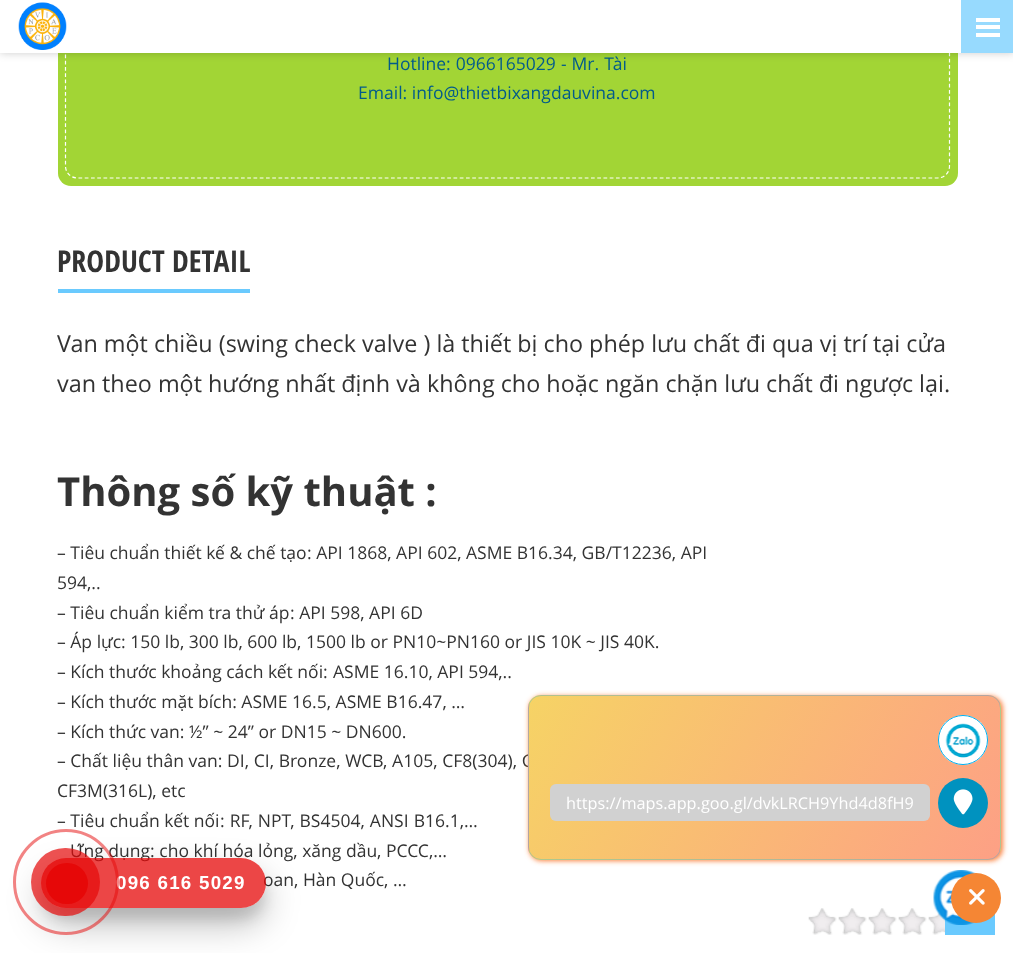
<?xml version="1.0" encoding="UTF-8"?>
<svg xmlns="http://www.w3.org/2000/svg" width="1013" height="953">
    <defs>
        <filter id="blur1" x="-50%" y="-200%" width="200%" height="500%"><feGaussianBlur stdDeviation="4"/></filter>
        <filter id="blur2" x="-50%" y="-200%" width="200%" height="500%"><feGaussianBlur stdDeviation="2.5"/></filter>
        <clipPath id="clip1"><rect x="528" y="695" width="473" height="165" rx="13"/></clipPath>
        <linearGradient id="g1" gradientUnits="userSpaceOnUse" x1="552" y1="493" x2="976" y2="737"><stop offset="0" stop-color="#F6D365"/><stop offset="1" stop-color="#FDA085"/></linearGradient>
        <linearGradient id="g2" gradientUnits="userSpaceOnUse" x1="81" y1="655" x2="505" y2="900"><stop offset="0" stop-color="#F6D365"/><stop offset="1" stop-color="#FDA085"/></linearGradient>
        <linearGradient id="g3" gradientUnits="userSpaceOnUse" x1="552" y1="655" x2="976" y2="900"><stop offset="0" stop-color="#F6D365"/><stop offset="1" stop-color="#FDA085"/></linearGradient>
        <linearGradient id="g4" gradientUnits="userSpaceOnUse" x1="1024" y1="655" x2="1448" y2="900"><stop offset="0" stop-color="#F6D365"/><stop offset="1" stop-color="#FDA085"/></linearGradient>
        <linearGradient id="g5" gradientUnits="userSpaceOnUse" x1="552" y1="818" x2="976" y2="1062"><stop offset="0" stop-color="#F6D365"/><stop offset="1" stop-color="#FDA085"/></linearGradient>
        <clipPath id="clip2"><path d="M 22 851 H 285 V 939 H 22 Z M 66 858 H 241 C 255 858 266 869 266 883 C 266 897 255 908 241 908 H 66 C 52 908 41 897 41 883 C 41 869 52 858 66 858 Z" clip-rule="evenodd"/></clipPath>
        <filter id="blur3" x="-50%" y="-200%" width="200%" height="500%"><feGaussianBlur stdDeviation="6"/></filter>
        <clipPath id="clip3"><path d="M 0 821 H 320 V 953 H 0 Z M 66 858 H 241 C 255 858 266 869 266 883 C 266 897 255 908 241 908 H 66 C 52 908 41 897 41 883 C 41 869 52 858 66 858 Z" clip-rule="evenodd"/></clipPath>
        <filter id="blur4" x="-50%" y="-200%" width="200%" height="500%"><feGaussianBlur stdDeviation="17.5"/></filter>
    </defs>
    <rect width="100%" height="100%" fill="#FFFFFF"/>
    <rect x="58" y="-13" width="900" height="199" rx="13" fill="#A2D535"/>
    <path d="M 77.5 -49.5 H 937.5 C 944 -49.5 949.5 -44 949.5 -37.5 V 166 C 949.5 173 944 178 937.5 178 H 77.5 C 71 178 65.5 173 65.5 166 V -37.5 C 65.5 -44 71 -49.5 77.5 -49.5 Z" fill="none" stroke="#FFFFFF" stroke-width="1.2" stroke-dasharray="3.75 2.5"/>
    <rect x="0" y="0" width="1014" height="53" fill="#000000" fill-opacity="0.2" filter="url(#blur1)"/>
    <rect x="0" y="0" width="961" height="53" fill="#FFFFFF"/>
    <image x="18" y="2" width="49" height="48" href="img_01.png"/>
    <rect x="961" y="0" width="52" height="53" fill="#97DAFE"/>
    <rect x="976" y="18" width="24" height="4" fill="#FFFFFF"/>
    <rect x="976" y="25" width="24" height="4" fill="#FFFFFF"/>
    <rect x="976" y="33" width="24" height="4" fill="#FFFFFF"/>
    <text x="387" y="70" word-spacing="0.5" font-family="Open Sans" font-size="17.5" fill="#025B8B">Hotline: 0966165029 - Mr. Tài</text>
    <text x="358" y="99" font-family="Open Sans" font-size="17.5" fill="#025B8B">Email: info@thietbixangdauvina.com</text>
    <rect x="58" y="289" width="192" height="4" fill="#6ACAFE"/>
    <text x="57" y="272" font-family="Open Sans Condensed" font-size="30" font-weight="700" fill="#333333">PRODUCT DETAIL</text>
    <text font-family="Open Sans" font-size="23.35" fill="#333333">
        <tspan x="57" y="352">Van một chiều (swing check valve ) là thiết bị cho phép lưu chất đi qua vị trí tại cửa</tspan>
        <tspan x="57" y="392">van theo một hướng nhất định và không cho hoặc ngăn chặn lưu chất đi ngược lại.</tspan>
    </text>
    <text x="57" y="506" font-family="Open Sans" font-size="40" font-weight="700" fill="#333333">Thông số kỹ thuật :</text>
    <text x="57" y="559" font-family="Open Sans" font-size="17.5" fill="#333333">– Tiêu chuẩn thiết kế &amp; chế tạo</text>
    <text x="307" y="559" font-family="Open Sans" font-size="17.5" fill="#333333">: API 1868, API 602, ASME B16.34, GB/T12236, API</text>
    <text font-family="Open Sans" font-size="17.5" fill="#333333">
        <tspan x="57" y="589">594,..</tspan>
        <tspan x="57" y="619">– Tiêu chuẩn kiểm tra thử áp</tspan>
    </text>
    <text x="290" y="619" font-family="Open Sans" font-size="17.5" fill="#333333">: API 598, API 6D</text>
    <text font-family="Open Sans" font-size="17.5" fill="#333333">
        <tspan x="57" y="648">– Áp lực: 150 lb, 300 lb, 600 lb, 1500 lb or PN10~PN160 or JIS 10K ~ JIS 40K.</tspan>
        <tspan x="57" y="678">– Kích thước khoảng cách kết nối:</tspan>
    </text>
    <text x="333" y="678" font-family="Open Sans" font-size="17.5" fill="#333333">ASME 16.10, API 594,..</text>
    <text font-family="Open Sans" font-size="17.5" fill="#333333">
        <tspan x="57" y="708">– Kích thước mặt bích: ASME 16.5, ASME B16.47, …</tspan>
        <tspan x="57" y="738">– Kích thức van: ½” ~ 24” or DN15 ~ DN600.</tspan>
        <tspan x="57" y="767">– Chất liệu thân van:</tspan>
    </text>
    <text x="227" y="767" word-spacing="0.25" font-family="Open Sans" font-size="17.5" fill="#333333">DI, CI, Bronze, WCB, A105, CF8(304), C</text>
    <text font-family="Open Sans" font-size="17.5" fill="#333333">
        <tspan x="57" y="797">CF3M(316L), etc</tspan>
        <tspan x="57" y="827">– Tiêu chuẩn kết nối</tspan>
    </text>
    <text x="220" y="827" word-spacing="0.5" font-family="Open Sans" font-size="17.5" fill="#333333">: RF, NPT, BS4504, ANSI B16.1,…</text>
    <text x="70" y="857" font-family="Open Sans" font-size="17.5" fill="#333333">Ứng dụng: cho khí hóa lỏng, xăng dầu, PCCC,…</text>
    <text x="263" y="886" font-family="Open Sans" font-size="17.5" fill="#333333">oan, Hàn Quốc, …</text>
    <image x="808" y="908" width="137" height="27" href="img_02.png"/>
    <rect x="529" y="696" width="474" height="165" rx="13" fill="#FB8543" filter="url(#blur2)"/>
    <g clip-path="url(#clip1)">
        <rect x="529" y="695" width="471" height="1" fill="url(#g1)"/>
        <rect x="528" y="696" width="1" height="163" fill="url(#g2)"/>
        <rect x="529" y="696" width="471" height="163" fill="url(#g3)"/>
        <rect x="1000" y="696" width="1" height="163" fill="url(#g4)"/>
        <rect x="529" y="859" width="471" height="1" fill="url(#g5)"/>
    </g>
    <rect x="528.5" y="695.5" width="472" height="164" rx="12.5" fill="none" stroke="#00AFEE" stroke-opacity="0.29"/>
    <circle cx="963" cy="740" r="25" fill="#FFFFFF"/>
    <image x="945" y="723" width="36" height="35" href="img_03.png"/>
    <circle cx="963" cy="740" r="24.5" fill="none" stroke="#00AFEE"/>
    <rect x="550" y="784" width="380" height="37" rx="6" fill="#D1D1D1"/>
    <text x="566" y="809" font-family="Open Sans" font-size="16.25" fill="#FFFFFF">https://maps.app.goo.gl/dvkLRCH9Yhd4d8fH9</text>
    <circle cx="963" cy="803" r="25" fill="#0092BF"/>
    <image x="953" y="789" width="20" height="26" href="img_04.png"/>
    <rect x="945" y="914" width="50" height="21" fill="#6ACAFE"/>
    <image x="933" y="870" width="44" height="55" href="img_06.png"/>
    <circle cx="976" cy="898" r="25" fill="#F58634"/>
    <image x="969" y="889" width="16" height="16" href="img_05.png"/>
    <g clip-path="url(#clip2)">
        <rect x="41" y="870" width="225" height="50" rx="25" fill="#000000" fill-opacity="0.1" filter="url(#blur3)"/>
    </g>
    <g clip-path="url(#clip3)">
        <rect x="41" y="875" width="225" height="50" rx="25" fill="#000000" fill-opacity="0.25" filter="url(#blur4)"/>
    </g>
    <rect x="41" y="858" width="225" height="50" rx="25" fill="#E60808" fill-opacity="0.75"/>
    <text x="116" y="889" font-family="Liberation Sans" font-size="18.75" font-weight="700" letter-spacing="1.25" fill="#FFFFFF">096 616 5029</text>
    <circle cx="66" cy="882" r="51.5" fill="none" stroke="#E60808" stroke-opacity="0.5" stroke-width="3"/>
    <rect x="31" y="848" width="69" height="68" rx="34" fill="#E60808" fill-opacity="0.7"/>
    <rect x="46" y="863" width="42" height="41" rx="20.5" fill="#E60808"/>
</svg>
